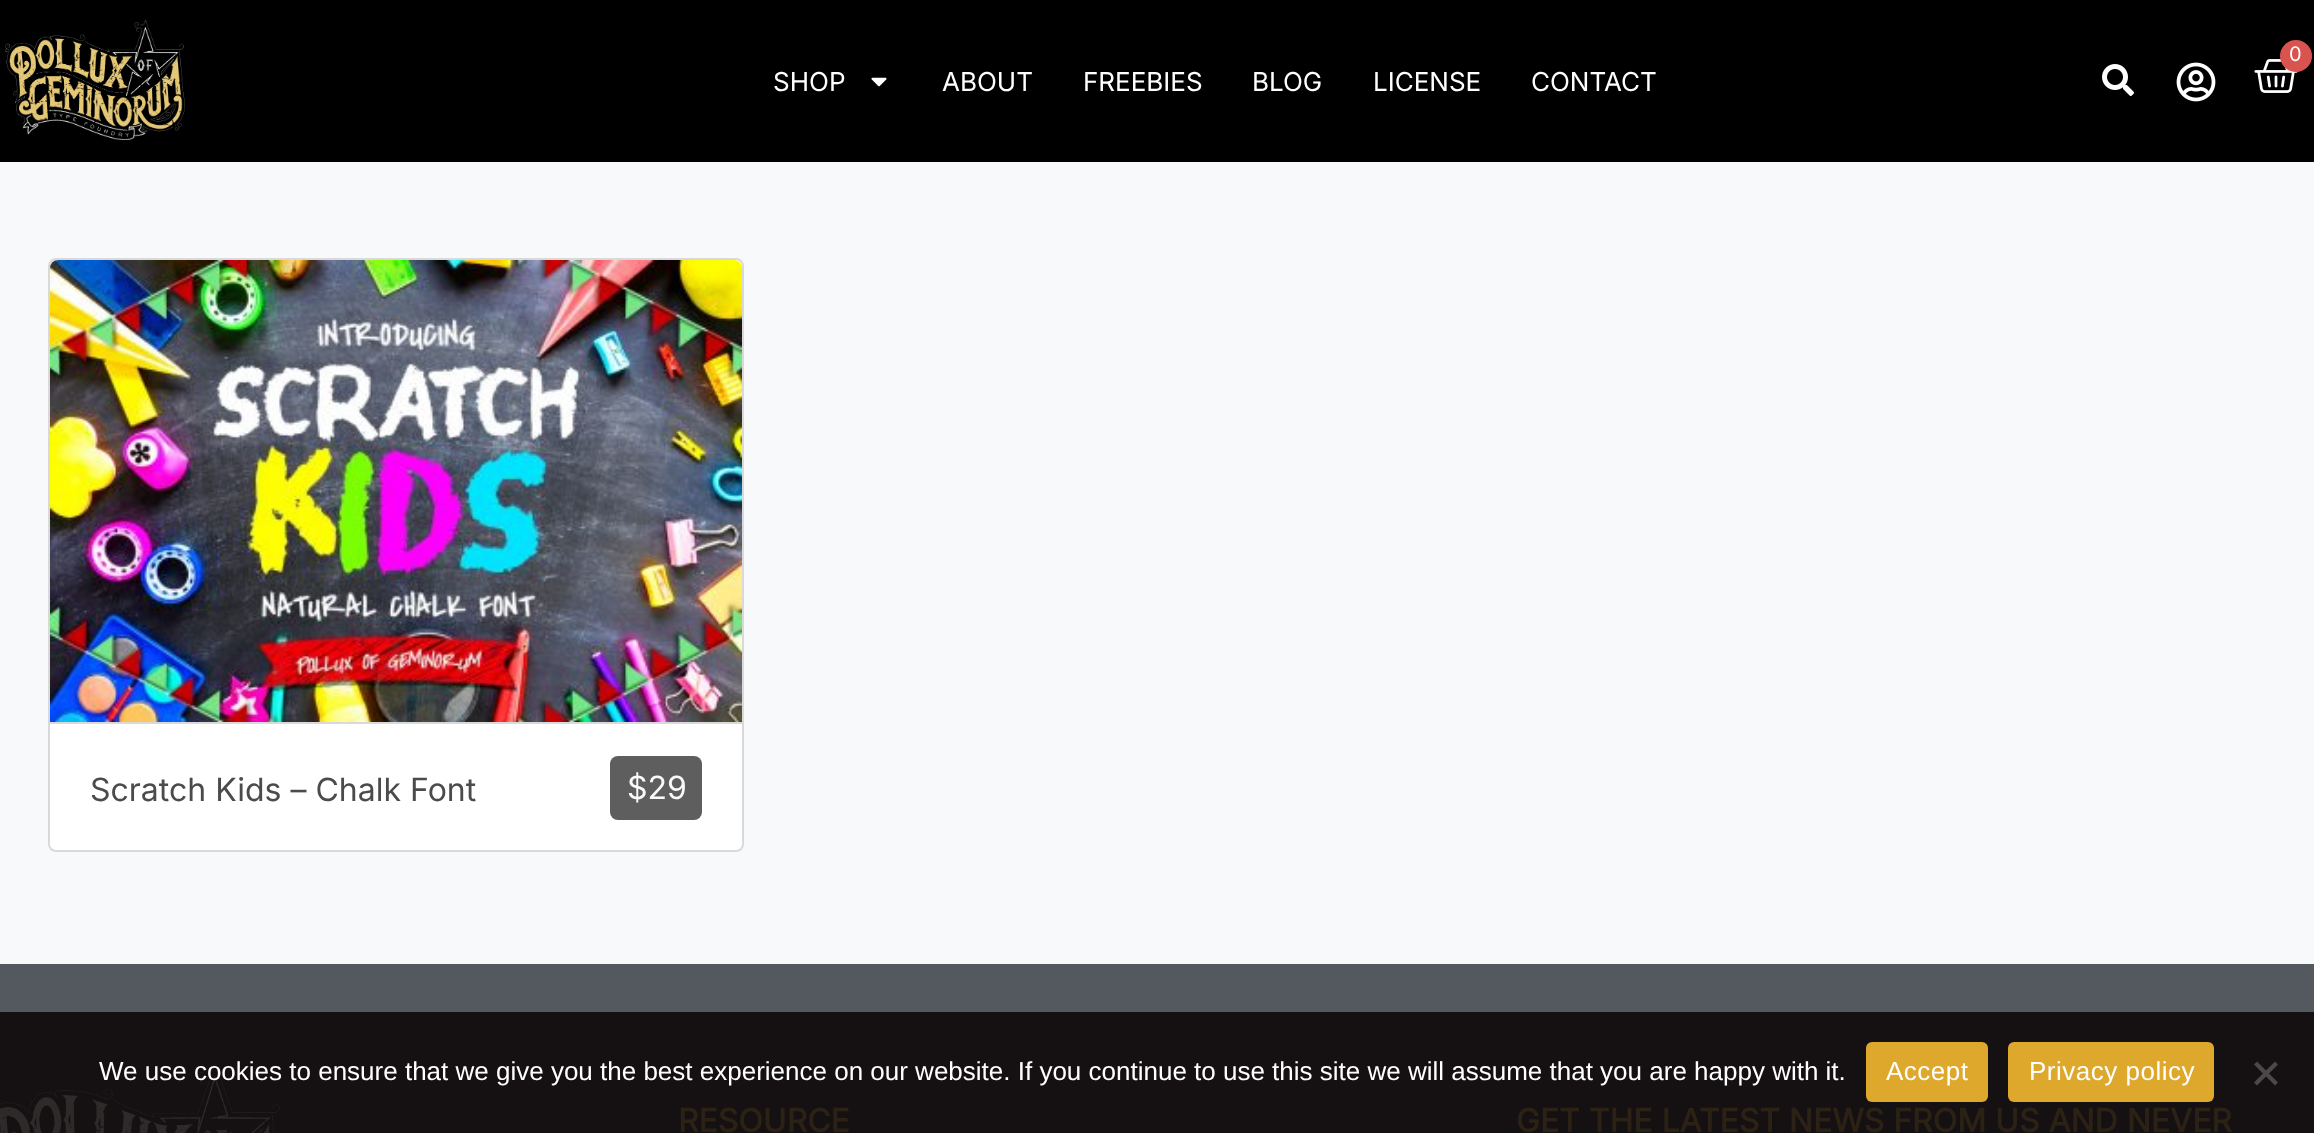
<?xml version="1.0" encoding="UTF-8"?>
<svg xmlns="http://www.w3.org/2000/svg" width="2314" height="1133">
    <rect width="100%" height="100%" fill="#F8F9FA"/>
    <rect x="0" y="0" width="2314" height="162" fill="#000000"/>
    <image x="5" y="20" width="180" height="120" href="img_01.png"/>
    <image x="2254" y="59" width="44" height="34" href="img_02.png"/>
    <circle cx="2296" cy="56" r="16" fill="#D9534F"/>
    <text x="2289" y="61" font-family="Inter" font-size="20" fill="#FFFFFF">0</text>
    <text x="773" y="91" font-family="Inter" font-size="26" fill="#FFFFFF">SHOP</text>
    <image x="871" y="77" width="16" height="10" href="img_03.png"/>
    <text x="942" y="91" font-family="Inter" font-size="26" fill="#FFFFFF">ABOUT</text>
    <text x="1083" y="91" font-family="Inter" font-size="26" fill="#FFFFFF">FREEBIES</text>
    <text x="1252" y="91" font-family="Inter" font-size="26" fill="#FFFFFF">BLOG</text>
    <text x="1373" y="91" font-family="Inter" font-size="26" fill="#FFFFFF">LICENSE</text>
    <text x="1531" y="91" font-family="Inter" font-size="26" fill="#FFFFFF">CONTACT</text>
    <image x="2102" y="64" width="32" height="32" href="img_04.png"/>
    <image x="2176" y="62" width="40" height="40" href="img_05.png"/>
    <rect x="48" y="258" width="696" height="594" rx="8" fill="#FFFFFF"/>
    <rect x="49" y="259" width="694" height="592" rx="7" fill="none" stroke="#000000" stroke-opacity="0.15" stroke-width="2"/>
    <image x="50" y="260" width="692" height="462" href="img_06.png"/>
    <rect x="50" y="722" width="692" height="2" fill="#D9D9D9"/>
    <text x="90" y="801" font-family="Inter" font-size="32" fill="#4B4B4B">Scratch Kids – Chalk Font</text>
    <rect x="610" y="756" width="92" height="64" rx="8" fill="#5E5E5E"/>
    <text x="627" y="799" font-family="Inter" font-size="32" fill="#F8F9FA">$29</text>
    <rect x="0" y="1012" width="2314" height="121" fill="#151112"/>
    <image x="0" y="1064" width="280" height="69" href="img_07.png"/>
    <text x="99" y="1080" font-family="Liberation Sans" font-size="26" fill="#FFFFFF">We use cookies to ensure that we give you the best experience on our website. If you continue to use this site we will assume that you are happy with it.</text>
    <rect x="1866" y="1042" width="122" height="60" rx="6" fill="#DDA82C"/>
    <text x="1886" y="1080" font-family="Liberation Sans" font-size="26" letter-spacing="0.5" fill="#FFFFFF">Accept</text>
    <rect x="2008" y="1042" width="206" height="60" rx="6" fill="#DDA82C"/>
    <text x="2029" y="1080" font-family="Liberation Sans" font-size="26" letter-spacing="0.5" fill="#FFFFFF">Privacy policy</text>
    <path d="M 2275 1061.5 L 2278 1064.5 L 2257 1085.5 L 2254 1082.5 Z" fill="#4B4849"/>
    <path d="M 2254 1064.5 L 2257 1061.5 L 2278 1082.5 L 2275 1085.5 Z" fill="#4B4849"/>
    <rect x="0" y="964" width="2314" height="48" fill="#54595F"/>
    <text x="678" y="1132" font-family="Inter" font-size="32" font-weight="700" fill="#2B2115">RESOURCE</text>
    <text x="1516" y="1132" font-family="Inter" font-size="32" font-weight="700" fill="#2B2115">GET THE LATEST NEWS FROM US AND NEVER</text>
</svg>
